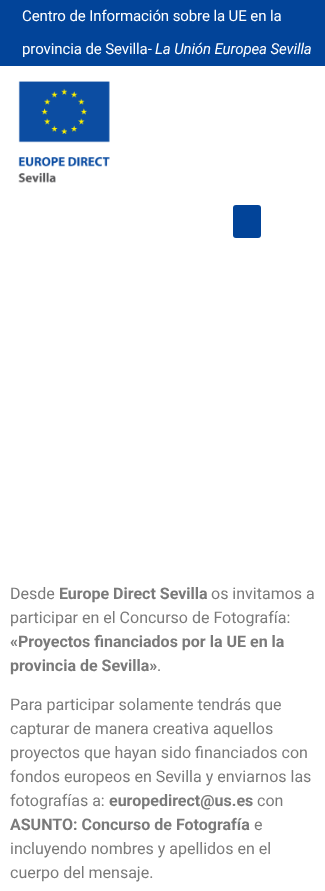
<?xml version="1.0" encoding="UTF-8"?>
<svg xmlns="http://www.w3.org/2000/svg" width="325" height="891">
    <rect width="100%" height="100%" fill="#FFFFFF"/>
    <rect x="0" y="0" width="325" height="66" fill="#024499"/>
    <text x="22" y="21" font-family="Roboto" font-size="15" letter-spacing="-0.1" fill="#FFFFFF">Centro de Información sobre la UE en la</text>
    <text x="22" y="54" font-family="Roboto" font-size="15" letter-spacing="-0.1" fill="#FFFFFF">provincia de Sevilla-</text>
    <text x="155" y="54" font-family="Roboto" font-size="15" font-style="italic" letter-spacing="-0.1" fill="#FFFFFF">La Unión Europea Sevilla</text>
    <image x="18" y="81" width="92" height="102" href="img_01.png"/>
    <rect x="233" y="205" width="28" height="33" rx="3" fill="#024499"/>
    <text x="10" y="599" font-family="Roboto" font-size="16" fill="#7A7A7A">Desde</text>
    <text x="59" y="599" font-family="Roboto" font-size="16" font-weight="700" fill="#7A7A7A">Europe Direct Sevilla</text>
    <text x="211" y="599" font-family="Roboto" font-size="16" fill="#7A7A7A">os invitamos a</text>
    <text x="10" y="623" font-family="Roboto" font-size="16" fill="#7A7A7A">participar en el Concurso de Fotografía:</text>
    <text font-family="Roboto" font-size="16" font-weight="700" fill="#7A7A7A">
        <tspan x="10" y="647">«Proyectos financiados por la UE en la</tspan>
        <tspan x="10" y="671">provincia de Sevilla»</tspan>
    </text>
    <text x="157" y="671" font-family="Roboto" font-size="16" fill="#7A7A7A">.</text>
    <text font-family="Roboto" font-size="16" fill="#7A7A7A">
        <tspan x="10" y="710">Para participar solamente tendrás que</tspan>
        <tspan x="10" y="734">capturar de manera creativa aquellos</tspan>
        <tspan x="10" y="758">proyectos que hayan sido financiados con</tspan>
        <tspan x="10" y="782">fondos europeos en Sevilla y enviarnos las</tspan>
        <tspan x="10" y="806">fotografías a:</tspan>
    </text>
    <text x="109" y="806" font-family="Roboto" font-size="16" font-weight="700" fill="#7A7A7A">europedirect@us.es</text>
    <text x="257" y="806" font-family="Roboto" font-size="16" fill="#7A7A7A">con</text>
    <text x="10" y="830" font-family="Roboto" font-size="16" font-weight="700" fill="#7A7A7A">ASUNTO: Concurso de Fotografía</text>
    <text x="254" y="830" font-family="Roboto" font-size="16" fill="#7A7A7A">e</text>
    <text font-family="Roboto" font-size="16" fill="#7A7A7A">
        <tspan x="10" y="854">incluyendo nombres y apellidos en el</tspan>
        <tspan x="10" y="878">cuerpo del mensaje.</tspan>
    </text>
</svg>
